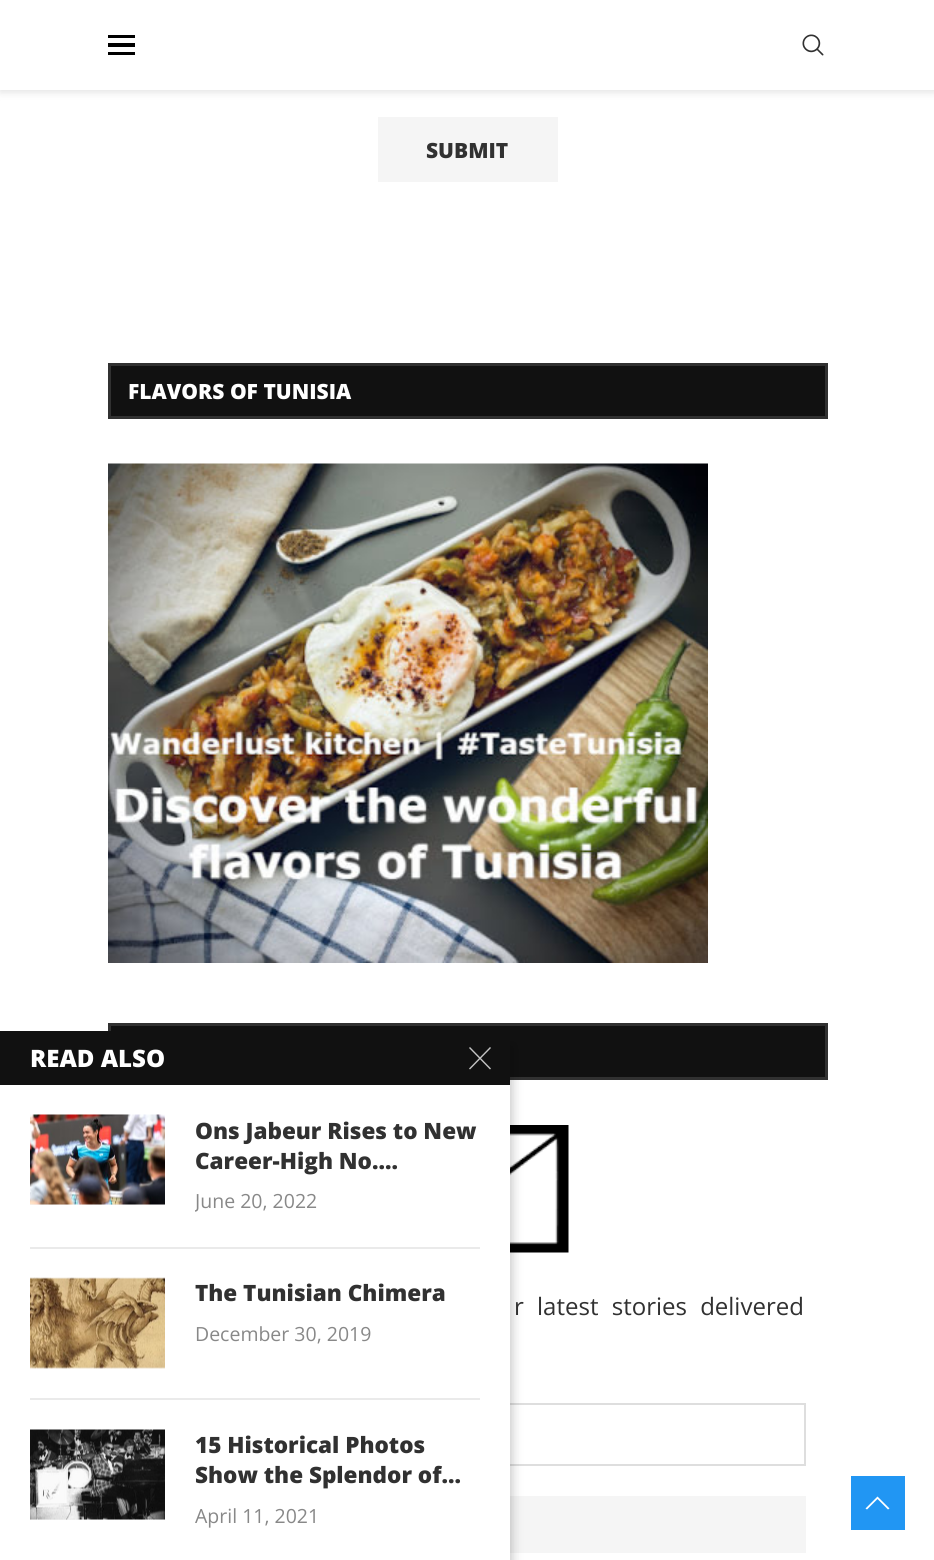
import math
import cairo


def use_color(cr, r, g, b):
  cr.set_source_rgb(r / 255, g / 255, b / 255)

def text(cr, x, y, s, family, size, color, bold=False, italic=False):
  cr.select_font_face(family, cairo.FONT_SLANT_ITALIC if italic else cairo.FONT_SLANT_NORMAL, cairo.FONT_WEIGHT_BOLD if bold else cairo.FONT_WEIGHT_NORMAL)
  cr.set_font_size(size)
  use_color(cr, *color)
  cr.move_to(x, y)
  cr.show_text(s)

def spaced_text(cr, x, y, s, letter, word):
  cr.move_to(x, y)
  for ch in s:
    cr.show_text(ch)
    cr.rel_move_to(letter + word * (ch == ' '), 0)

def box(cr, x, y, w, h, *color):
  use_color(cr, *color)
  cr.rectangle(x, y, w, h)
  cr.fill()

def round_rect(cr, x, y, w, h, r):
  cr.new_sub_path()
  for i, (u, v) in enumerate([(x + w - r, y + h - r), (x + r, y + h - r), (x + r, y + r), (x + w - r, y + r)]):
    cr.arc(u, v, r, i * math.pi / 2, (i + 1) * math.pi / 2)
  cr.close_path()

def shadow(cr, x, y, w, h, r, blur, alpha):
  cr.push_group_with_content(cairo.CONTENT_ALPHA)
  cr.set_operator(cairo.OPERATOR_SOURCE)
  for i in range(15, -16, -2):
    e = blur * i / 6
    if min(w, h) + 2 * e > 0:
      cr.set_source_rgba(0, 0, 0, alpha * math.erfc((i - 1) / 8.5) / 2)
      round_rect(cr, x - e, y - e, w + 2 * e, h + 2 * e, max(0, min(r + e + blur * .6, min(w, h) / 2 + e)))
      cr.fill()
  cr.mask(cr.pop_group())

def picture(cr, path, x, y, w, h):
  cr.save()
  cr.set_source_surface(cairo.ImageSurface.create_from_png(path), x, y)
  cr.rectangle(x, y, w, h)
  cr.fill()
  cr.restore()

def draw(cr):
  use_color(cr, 255, 255, 255)
  cr.paint()
  use_color(cr, 190, 190, 190)
  shadow(cr, 0, 2, 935, 90, 0, 4, 0.46)
  box(cr, 0, 0, 934, 90, 255, 255, 255)
  box(cr, 108, 35, 27, 3, 0, 0, 0)
  box(cr, 108, 43, 27, 4, 0, 0, 0)
  box(cr, 108, 52, 27, 3, 0, 0, 0)
  picture(cr, "img_01.png", 802, 34, 22, 22)
  box(cr, 378, 117, 180, 65, 245, 245, 245)
  use_color(cr, 17, 17, 17)
  cr.rectangle(109.5, 364.5, 717, 53)
  cr.fill_preserve()
  use_color(cr, 49, 49, 49)
  cr.set_line_width(3)
  cr.stroke()
  picture(cr, "img_02.png", 108, 463, 600, 500)
  use_color(cr, 17, 17, 17)
  cr.rectangle(109.5, 1024.5, 717, 54)
  cr.fill_preserve()
  use_color(cr, 49, 49, 49)
  cr.stroke()
  picture(cr, "img_03.png", 510, 1125, 59, 128)
  cr.rectangle(132, 1404, 673, 61)
  use_color(cr, 222, 222, 222)
  cr.set_line_width(2)
  cr.stroke()
  box(cr, 510, 1496, 296, 57, 245, 245, 245)
  use_color(cr, 0, 0, 0)
  shadow(cr, 3, 1046, 510, 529, 0, 5, 0.2)
  box(cr, 0, 1085, 510, 475, 255, 255, 255)
  box(cr, 0, 1031, 510, 54, 17, 17, 17)
  use_color(cr, 196, 196, 196)
  cr.new_path()
  cr.move_to(469, 1068.5)
  cr.line_to(490, 1047)
  cr.line_to(491, 1048)
  cr.line_to(470, 1069.5)
  cr.close_path()
  cr.fill()
  cr.new_path()
  cr.move_to(470, 1047)
  cr.line_to(491, 1068.5)
  cr.line_to(490, 1069.5)
  cr.line_to(469, 1048)
  cr.close_path()
  cr.fill()
  box(cr, 30, 1247, 450, 2, 234, 234, 234)
  box(cr, 30, 1204, 135, 1, 245, 245, 245)
  picture(cr, "img_04.png", 30, 1114, 135, 91)
  box(cr, 30, 1398, 450, 2, 234, 234, 234)
  box(cr, 30, 1278, 135, 90, 245, 245, 245)
  picture(cr, "img_05.png", 30, 1277, 135, 92)
  box(cr, 30, 1519, 135, 1, 245, 245, 245)
  picture(cr, "img_06.png", 30, 1429, 135, 91)
  box(cr, 851, 1476, 54, 54, 33, 150, 243)
  use_color(cr, 255, 255, 255)
  cr.new_path()
  cr.move_to(877.5, 1496.5)
  cr.line_to(865.5, 1508.5)
  cr.line_to(867, 1509.5)
  cr.line_to(877.5, 1499)
  cr.line_to(888, 1509.5)
  cr.line_to(889.5, 1508.5)
  cr.close_path()
  cr.fill()
  text(cr, 426, 158, "SUBMIT", "Open Sans ExtraBold", 21, (49, 49, 49))
  text(cr, 128, 399, "FLAVORS OF TUNISIA", "Open Sans ExtraBold", 21, (255, 255, 255))
  cr.select_font_face("Open Sans")
  cr.set_font_size(24)
  use_color(cr, 49, 49, 49)
  spaced_text(cr, 514, 1315, "r latest stories delivered", 0, 7)
  text(cr, 30, 1067, "READ ALSO", "Open Sans ExtraBold", 24, (255, 255, 255))
  text(cr, 195, 1139, "Ons Jabeur Rises to New", "Open Sans ExtraBold", 22.5, (49, 49, 49))
  text(cr, 195, 1169, "Career-High No....", "Open Sans ExtraBold", 22.5, (49, 49, 49))
  cr.save()
  cr.rectangle(195, 1115, 285, 102)
  cr.clip()
  text(cr, 195, 1208, "June 20, 2022", "Open Sans", 19.5, (136, 136, 136))
  cr.restore()
  text(cr, 195, 1301, "The Tunisian Chimera", "Open Sans ExtraBold", 22.5, (49, 49, 49))
  text(cr, 195, 1341, "December 30, 2019", "Open Sans", 19.5, (136, 136, 136))
  text(cr, 195, 1453, "15 Historical Photos", "Open Sans ExtraBold", 22.5, (49, 49, 49))
  text(cr, 195, 1483, "Show the Splendor of...", "Open Sans ExtraBold", 22.5, (49, 49, 49))
  text(cr, 195, 1523, "April 11, 2021", "Open Sans", 19.5, (136, 136, 136))


surface = cairo.ImageSurface(cairo.FORMAT_RGB24, 934, 1560)
cr = cairo.Context(surface)
options = cairo.FontOptions()
options.set_hint_metrics(cairo.HINT_METRICS_OFF)
options.set_hint_style(cairo.HINT_STYLE_NONE)
cr.set_font_options(options)
cr.set_miter_limit(4)
draw(cr)
surface.write_to_png("out.png")
